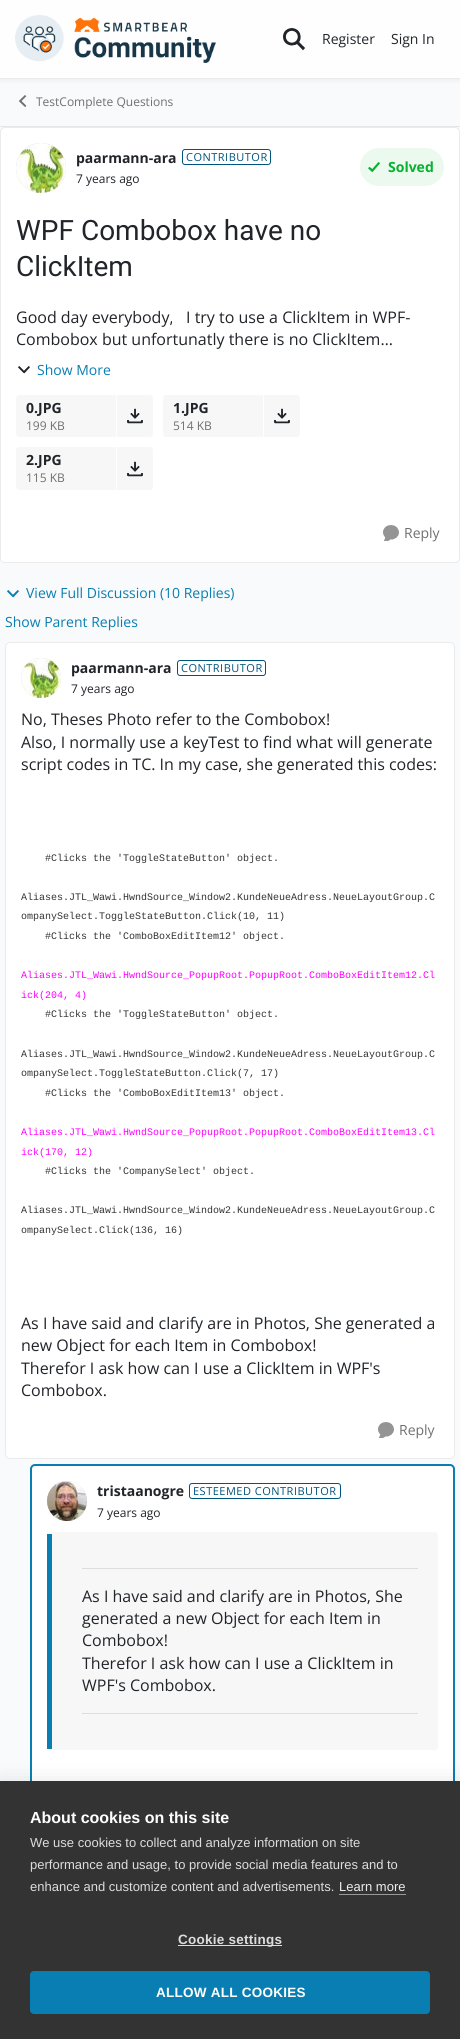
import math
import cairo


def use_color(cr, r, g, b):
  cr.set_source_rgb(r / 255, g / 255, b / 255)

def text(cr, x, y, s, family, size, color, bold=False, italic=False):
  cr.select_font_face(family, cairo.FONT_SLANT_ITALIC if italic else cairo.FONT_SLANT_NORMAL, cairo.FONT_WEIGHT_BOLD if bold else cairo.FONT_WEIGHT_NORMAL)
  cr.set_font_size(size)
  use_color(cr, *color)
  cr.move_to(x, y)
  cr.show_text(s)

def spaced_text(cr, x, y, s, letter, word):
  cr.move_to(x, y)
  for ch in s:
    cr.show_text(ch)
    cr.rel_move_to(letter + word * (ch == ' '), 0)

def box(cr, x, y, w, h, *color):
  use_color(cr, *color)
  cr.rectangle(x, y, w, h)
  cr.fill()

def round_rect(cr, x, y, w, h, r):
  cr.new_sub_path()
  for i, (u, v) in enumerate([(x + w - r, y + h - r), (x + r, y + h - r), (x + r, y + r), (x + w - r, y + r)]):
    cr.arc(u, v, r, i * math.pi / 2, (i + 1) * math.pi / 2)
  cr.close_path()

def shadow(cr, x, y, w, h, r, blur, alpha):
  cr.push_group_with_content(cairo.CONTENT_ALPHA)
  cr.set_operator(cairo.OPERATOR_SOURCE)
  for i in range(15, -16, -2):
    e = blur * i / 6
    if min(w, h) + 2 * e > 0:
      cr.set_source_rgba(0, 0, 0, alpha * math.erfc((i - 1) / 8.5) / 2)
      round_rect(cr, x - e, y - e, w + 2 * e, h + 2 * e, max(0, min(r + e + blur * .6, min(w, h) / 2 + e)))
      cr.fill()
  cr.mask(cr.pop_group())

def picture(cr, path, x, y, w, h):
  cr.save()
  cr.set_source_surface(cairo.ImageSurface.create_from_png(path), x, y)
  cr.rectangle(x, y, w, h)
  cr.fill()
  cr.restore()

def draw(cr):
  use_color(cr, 248, 250, 251)
  cr.paint()
  use_color(cr, 51, 51, 51)
  shadow(cr, 0, 2, 460, 79, 0, 2, 0.06)
  box(cr, 0, 0, 460, 78, 254, 254, 254)
  box(cr, 0, 78, 460, 1, 234, 234, 234)
  picture(cr, "img_01.png", 15, 15, 201, 48)
  picture(cr, "img_02.png", 283, 28, 22, 23)
  box(cr, 0, 126, 460, 1, 228, 230, 231)
  picture(cr, "img_03.png", 19, 95, 8, 12)
  use_color(cr, 255, 255, 255)
  round_rect(cr, 0, 127, 460, 436, 5)
  cr.fill()
  round_rect(cr, 0.5, 127.5, 459, 435, 4.5)
  cr.set_source_rgba(0, 0, 0, 0.08)
  cr.set_line_width(1)
  cr.stroke()
  use_color(cr, 217, 217, 217)
  cr.arc(41, 168, 25, 0, 2 * math.pi)
  cr.fill()
  picture(cr, "img_04.png", 16, 143, 50, 50)
  round_rect(cr, 182.5, 149.5, 88, 15, 2.5)
  use_color(cr, 0, 83, 124)
  cr.stroke()
  use_color(cr, 235, 249, 238)
  round_rect(cr, 360, 148, 84, 38, 19)
  cr.fill()
  picture(cr, "img_05.png", 368, 162, 12, 10)
  picture(cr, "img_06.png", 18, 366, 12, 8)
  use_color(cr, 247, 247, 247)
  cr.new_path()
  cr.move_to(19, 395)
  cr.line_to(116, 395)
  cr.line_to(116, 437)
  cr.line_to(19, 437)
  cr.curve_to(17.5, 437, 16, 435.5, 16, 434)
  cr.line_to(16, 398)
  cr.curve_to(16, 396.5, 17.5, 395, 19, 395)
  cr.close_path()
  cr.fill()
  cr.new_path()
  cr.move_to(116, 395)
  cr.line_to(150, 395)
  cr.curve_to(151.5, 395, 153, 396.5, 153, 398)
  cr.line_to(153, 434)
  cr.curve_to(153, 435.5, 151.5, 437, 150, 437)
  cr.line_to(116, 437)
  cr.close_path()
  cr.fill()
  box(cr, 116, 395, 1, 42, 255, 255, 255)
  picture(cr, "img_07.png", 127, 408, 16, 16)
  use_color(cr, 247, 247, 247)
  cr.new_path()
  cr.move_to(166, 395)
  cr.line_to(263, 395)
  cr.line_to(263, 437)
  cr.line_to(166, 437)
  cr.curve_to(164.5, 437, 163, 435.5, 163, 434)
  cr.line_to(163, 398)
  cr.curve_to(163, 396.5, 164.5, 395, 166, 395)
  cr.close_path()
  cr.fill()
  cr.new_path()
  cr.move_to(263, 395)
  cr.line_to(297, 395)
  cr.curve_to(298.5, 395, 300, 396.5, 300, 398)
  cr.line_to(300, 434)
  cr.curve_to(300, 435.5, 298.5, 437, 297, 437)
  cr.line_to(263, 437)
  cr.close_path()
  cr.fill()
  box(cr, 263, 395, 1, 42, 255, 255, 255)
  picture(cr, "img_07.png", 274, 408, 16, 16)
  use_color(cr, 247, 247, 247)
  cr.new_path()
  cr.move_to(19, 447)
  cr.line_to(116, 447)
  cr.line_to(116, 490)
  cr.line_to(19, 490)
  cr.curve_to(17.5, 490, 16, 488.5, 16, 487)
  cr.line_to(16, 450)
  cr.curve_to(16, 448.5, 17.5, 447, 19, 447)
  cr.close_path()
  cr.fill()
  cr.new_path()
  cr.move_to(116, 447)
  cr.line_to(150, 447)
  cr.curve_to(151.5, 447, 153, 448.5, 153, 450)
  cr.line_to(153, 487)
  cr.curve_to(153, 488.5, 151.5, 490, 150, 490)
  cr.line_to(116, 490)
  cr.close_path()
  cr.fill()
  box(cr, 116, 447, 1, 43, 255, 255, 255)
  picture(cr, "img_07.png", 127, 461, 16, 16)
  picture(cr, "img_08.png", 383, 525, 16, 16)
  picture(cr, "img_09.png", 7, 590, 12, 8)
  round_rect(cr, 5, 642, 450, 817, 5)
  cr.fill()
  round_rect(cr, 5.5, 642.5, 449, 816, 4.5)
  cr.set_source_rgba(0, 0, 0, 0.08)
  cr.stroke()
  use_color(cr, 217, 217, 217)
  cr.arc(41, 678, 20, 0, 2 * math.pi)
  cr.fill()
  picture(cr, "img_10.png", 21, 658, 40, 40)
  round_rect(cr, 177.5, 660.5, 88, 15, 2.5)
  use_color(cr, 0, 83, 124)
  cr.stroke()
  picture(cr, "img_08.png", 378, 1422, 16, 16)
  use_color(cr, 255, 255, 255)
  round_rect(cr, 31, 1465, 423, 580, 4)
  cr.fill_preserve()
  use_color(cr, 9, 126, 178)
  cr.set_line_width(2)
  cr.stroke()
  use_color(cr, 217, 217, 217)
  cr.arc(67, 1501, 20, 0, 2 * math.pi)
  cr.fill()
  picture(cr, "img_11.png", 47, 1481, 40, 40)
  round_rect(cr, 189.5, 1483.5, 151, 15, 2.5)
  use_color(cr, 0, 83, 124)
  cr.set_line_width(1)
  cr.stroke()
  use_color(cr, 247, 247, 247)
  round_rect(cr, 47, 1532, 391, 218, 3)
  cr.fill()
  box(cr, 47, 1534, 5, 215, 9, 126, 178)
  box(cr, 82, 1568, 336, 1, 222, 222, 222)
  box(cr, 82, 1713, 336, 1, 222, 222, 222)
  use_color(cr, 0, 0, 0)
  shadow(cr, 0, 1781, 460, 258, 0, 10, 0.1)
  box(cr, 0, 1781, 460, 258, 51, 51, 51)
  box(cr, 339, 1894, 67, 1, 153, 153, 153)
  box(cr, 178, 1945, 104, 1, 221, 221, 221)
  use_color(cr, 9, 126, 178)
  round_rect(cr, 30, 1971, 400, 43, 4)
  cr.fill()
  text(cr, 322, 44, "Register", "Open Sans", 14, (33, 36, 41))
  text(cr, 391, 44, "Sign In", "Open Sans", 14, (33, 36, 41))
  text(cr, 36, 106, "TestComplete Questions", "Open Sans", 12, (112, 112, 112))
  text(cr, 76, 163, "paarmann-ara", "Open Sans", 14, (33, 36, 41), bold=True)
  cr.select_font_face("Open Sans")
  cr.set_font_size(11)
  use_color(cr, 0, 83, 124)
  spaced_text(cr, 186, 161, "CONTRIBUTOR", 0.5, 0)
  text(cr, 76, 183, "7 years ago", "Open Sans", 12, (33, 36, 41))
  text(cr, 388, 172, "Solved", "Open Sans", 14, (8, 177, 48), bold=True)
  text(cr, 16, 240, "WPF Combobox have no", "Roboto", 28, (33, 36, 41))
  text(cr, 16, 276, "ClickItem", "Roboto", 28, (33, 36, 41))
  text(cr, 16, 323, "Good day everybody,", "Open Sans", 16, (33, 36, 41))
  text(cr, 186, 323, "I try to use a ClickItem in WPF-", "Open Sans", 16, (33, 36, 41))
  text(cr, 16, 345, "Combobox but unfortunatly there is no ClickItem…", "Open Sans", 16, (33, 36, 41))
  text(cr, 37, 375, "Show More", "Open Sans", 14, (9, 126, 178))
  text(cr, 26, 413, "0.JPG", "Open Sans", 14, (33, 36, 41), bold=True)
  text(cr, 26, 430, "199 KB", "Open Sans", 12, (112, 112, 112))
  text(cr, 173, 413, "1.JPG", "Open Sans", 14, (33, 36, 41), bold=True)
  text(cr, 173, 430, "514 KB", "Open Sans", 12, (112, 112, 112))
  text(cr, 26, 465, "2.JPG", "Open Sans", 14, (33, 36, 41), bold=True)
  text(cr, 26, 482, "115 KB", "Open Sans", 12, (112, 112, 112))
  text(cr, 404, 538, "Reply", "Open Sans", 14, (112, 112, 112))
  text(cr, 26, 598, "View Full Discussion (10 Replies)", "Open Sans", 14, (9, 126, 178))
  text(cr, 5, 627, "Show Parent Replies", "Open Sans", 14, (9, 126, 178))
  text(cr, 71, 673, "paarmann-ara", "Open Sans", 14, (33, 36, 41), bold=True)
  cr.select_font_face("Open Sans")
  cr.set_font_size(11)
  use_color(cr, 0, 83, 124)
  spaced_text(cr, 181, 672, "CONTRIBUTOR", 0.5, 0)
  text(cr, 71, 693, "7 years ago", "Open Sans", 12, (33, 36, 41))
  text(cr, 21, 725, "No, Theses Photo refer to the Combobox!", "Open Sans", 16, (33, 36, 41))
  text(cr, 21, 748, "Also, I normally use a keyTest to find what will generate", "Open Sans", 16, (33, 36, 41))
  text(cr, 21, 770, "script codes in TC. In my case, she generated this codes:", "Open Sans", 16, (33, 36, 41))
  text(cr, 45, 861, "#Clicks the 'ToggleStateButton' object.", "Liberation Mono", 10, (51, 51, 51))
  text(cr, 21, 900, "Aliases.JTL_Wawi.HwndSource_Window2.KundeNeueAdress.NeueLayoutGroup.C", "Liberation Mono", 10, (51, 51, 51))
  text(cr, 21, 919, "ompanySelect.ToggleStateButton.Click(10, 11)", "Liberation Mono", 10, (51, 51, 51))
  text(cr, 45, 939, "#Clicks the 'ComboBoxEditItem12' object.", "Liberation Mono", 10, (51, 51, 51))
  text(cr, 21, 978, "Aliases.JTL_Wawi.HwndSource_PopupRoot.PopupRoot.ComboBoxEditItem12.Cl", "Liberation Mono", 10, (255, 0, 255))
  text(cr, 21, 998, "ick(204, 4)", "Liberation Mono", 10, (255, 0, 255))
  text(cr, 45, 1017, "#Clicks the 'ToggleStateButton' object.", "Liberation Mono", 10, (51, 51, 51))
  text(cr, 21, 1057, "Aliases.JTL_Wawi.HwndSource_Window2.KundeNeueAdress.NeueLayoutGroup.C", "Liberation Mono", 10, (51, 51, 51))
  text(cr, 21, 1076, "ompanySelect.ToggleStateButton.Click(7, 17)", "Liberation Mono", 10, (51, 51, 51))
  text(cr, 45, 1096, "#Clicks the 'ComboBoxEditItem13' object.", "Liberation Mono", 10, (51, 51, 51))
  text(cr, 21, 1135, "Aliases.JTL_Wawi.HwndSource_PopupRoot.PopupRoot.ComboBoxEditItem13.Cl", "Liberation Mono", 10, (255, 0, 255))
  text(cr, 21, 1155, "ick(170, 12)", "Liberation Mono", 10, (255, 0, 255))
  text(cr, 45, 1174, "#Clicks the 'CompanySelect' object.", "Liberation Mono", 10, (51, 51, 51))
  text(cr, 21, 1213, "Aliases.JTL_Wawi.HwndSource_Window2.KundeNeueAdress.NeueLayoutGroup.C", "Liberation Mono", 10, (51, 51, 51))
  text(cr, 21, 1233, "ompanySelect.Click(136, 16)", "Liberation Mono", 10, (51, 51, 51))
  text(cr, 21, 1329, "As I have said and clarify are in Photos, She generated a", "Open Sans", 16, (33, 36, 41))
  text(cr, 21, 1351, "new Object for each Item in Combobox!", "Open Sans", 16, (33, 36, 41))
  text(cr, 21, 1374, "Therefor I ask how can I use a ClickItem in WPF's", "Open Sans", 16, (33, 36, 41))
  text(cr, 21, 1396, "Combobox.", "Open Sans", 16, (33, 36, 41))
  text(cr, 399, 1435, "Reply", "Open Sans", 14, (112, 112, 112))
  text(cr, 97, 1496, "tristaanogre", "Open Sans", 14, (33, 36, 41), bold=True)
  cr.select_font_face("Open Sans")
  cr.set_font_size(11)
  use_color(cr, 0, 83, 124)
  spaced_text(cr, 193, 1495, "ESTEEMED CONTRIBUTOR", 0.5, 0)
  text(cr, 97, 1517, "7 years ago", "Open Sans", 12, (33, 36, 41))
  text(cr, 82, 1602, "As I have said and clarify are in Photos, She", "Open Sans", 16, (33, 36, 41))
  text(cr, 82, 1624, "generated a new Object for each Item in", "Open Sans", 16, (33, 36, 41))
  text(cr, 82, 1646, "Combobox!", "Open Sans", 16, (33, 36, 41))
  text(cr, 82, 1669, "Therefor I ask how can I use a ClickItem in", "Open Sans", 16, (33, 36, 41))
  text(cr, 82, 1691, "WPF's Combobox.", "Open Sans", 16, (33, 36, 41))
  text(cr, 30, 1823, "About cookies on this site", "Liberation Sans", 16, (255, 255, 255), bold=True)
  text(cr, 30, 1847, "We use cookies to collect and analyze information on site", "Liberation Sans", 13, (221, 221, 221))
  text(cr, 30, 1869, "performance and usage, to provide social media features and to", "Liberation Sans", 13, (221, 221, 221))
  text(cr, 30, 1891, "enhance and customize content and advertisements.", "Liberation Sans", 13, (221, 221, 221))
  text(cr, 339, 1891, "Learn more", "Liberation Sans", 13, (238, 238, 238))
  cr.select_font_face("Liberation Sans", cairo.FONT_SLANT_NORMAL, cairo.FONT_WEIGHT_BOLD)
  cr.set_font_size(13.5)
  use_color(cr, 221, 221, 221)
  spaced_text(cr, 178, 1944, "Cookie settings", 0.25, 0)
  use_color(cr, 255, 255, 255)
  spaced_text(cr, 156, 1997, "ALLOW ALL COOKIES", 0.25, 0)


surface = cairo.ImageSurface(cairo.FORMAT_RGB24, 460, 2039)
cr = cairo.Context(surface)
options = cairo.FontOptions()
options.set_hint_metrics(cairo.HINT_METRICS_OFF)
options.set_hint_style(cairo.HINT_STYLE_NONE)
cr.set_font_options(options)
cr.set_miter_limit(4)
draw(cr)
surface.write_to_png("out.png")
